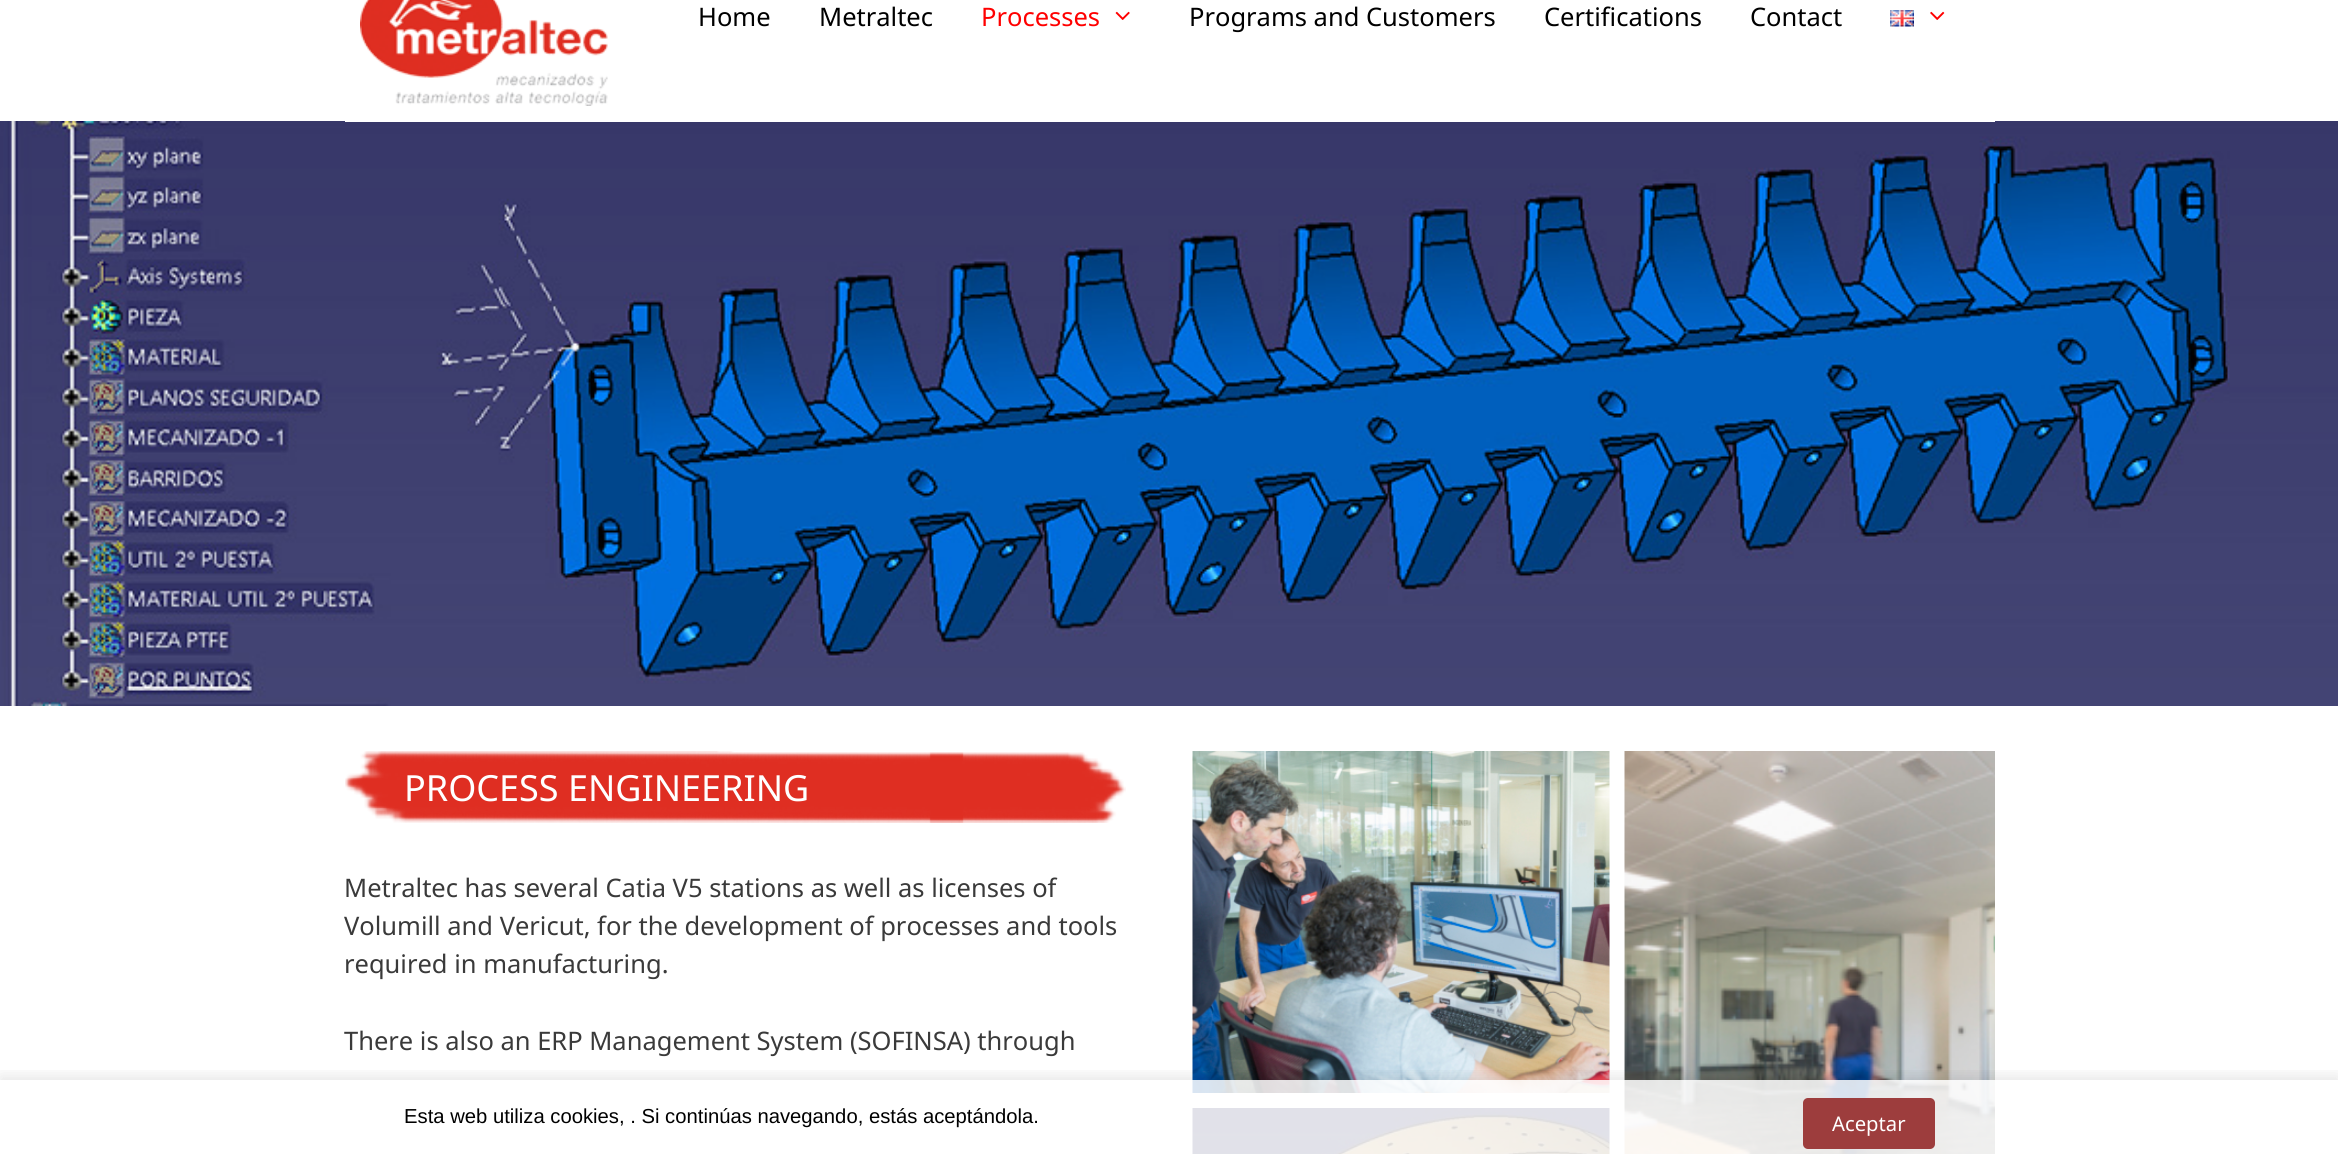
import math
import cairo


def use_color(cr, r, g, b):
  cr.set_source_rgb(r / 255, g / 255, b / 255)

def text(cr, x, y, s, family, size, color, bold=False, italic=False):
  cr.select_font_face(family, cairo.FONT_SLANT_ITALIC if italic else cairo.FONT_SLANT_NORMAL, cairo.FONT_WEIGHT_BOLD if bold else cairo.FONT_WEIGHT_NORMAL)
  cr.set_font_size(size)
  use_color(cr, *color)
  cr.move_to(x, y)
  cr.show_text(s)

def box(cr, x, y, w, h, *color):
  use_color(cr, *color)
  cr.rectangle(x, y, w, h)
  cr.fill()

def round_rect(cr, x, y, w, h, r):
  cr.new_sub_path()
  for i, (u, v) in enumerate([(x + w - r, y + h - r), (x + r, y + h - r), (x + r, y + r), (x + w - r, y + r)]):
    cr.arc(u, v, r, i * math.pi / 2, (i + 1) * math.pi / 2)
  cr.close_path()

def shadow(cr, x, y, w, h, r, blur, alpha):
  cr.push_group_with_content(cairo.CONTENT_ALPHA)
  cr.set_operator(cairo.OPERATOR_SOURCE)
  for i in range(15, -16, -2):
    e = blur * i / 6
    if min(w, h) + 2 * e > 0:
      cr.set_source_rgba(0, 0, 0, alpha * math.erfc((i - 1) / 8.5) / 2)
      round_rect(cr, x - e, y - e, w + 2 * e, h + 2 * e, max(0, min(r + e + blur * .6, min(w, h) / 2 + e)))
      cr.fill()
  cr.mask(cr.pop_group())

def picture(cr, path, x, y, w, h):
  cr.save()
  cr.set_source_surface(cairo.ImageSurface.create_from_png(path), x, y)
  cr.rectangle(x, y, w, h)
  cr.fill()
  cr.restore()

def draw(cr):
  use_color(cr, 255, 255, 255)
  cr.paint()
  picture(cr, "img_05.png", 0, 121, 2338, 585)
  box(cr, 345, 121, 1650, 1, 255, 255, 255)
  picture(cr, "img_01.png", 360, 0, 248, 106)
  picture(cr, "img_02.png", 1115, 11, 15, 9)
  picture(cr, "img_03.png", 1890, 10, 24, 17)
  picture(cr, "img_04.png", 1930, 11, 15, 9)
  picture(cr, "img_06.png", 345, 751, 781, 72)
  picture(cr, "img_07.png", 1192, 751, 418, 342)
  picture(cr, "img_08.png", 1624, 751, 371, 403)
  picture(cr, "img_09.png", 1192, 1108, 418, 46)
  cr.save()
  cr.rectangle(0, 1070, 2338, 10)
  cr.clip()
  use_color(cr, 0, 0, 0)
  shadow(cr, 0, 1076, 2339, 75, 0, 7.5, 0.1)
  cr.restore()
  cr.set_source_rgba(1, 1, 1, 0.85)
  cr.rectangle(1192, 1080, 803, 74)
  cr.fill()
  use_color(cr, 157, 61, 61)
  round_rect(cr, 1803, 1098, 132, 51, 5)
  cr.fill()
  text(cr, 698, 26, "Home", "Noto Sans", 25.5, (0, 0, 0))
  text(cr, 819, 26, "Metraltec", "Noto Sans", 25.5, (0, 0, 0))
  text(cr, 981, 26, "Processes", "Noto Sans", 25.5, (255, 0, 0))
  text(cr, 1189, 26, "Programs and Customers", "Noto Sans", 25.5, (0, 0, 0))
  text(cr, 1544, 26, "Certifications", "Noto Sans", 25.5, (0, 0, 0))
  text(cr, 1750, 26, "Contact", "Noto Sans", 25.5, (0, 0, 0))
  text(cr, 404, 801, "PROCESS ENGINEERING", "Noto Sans", 36, (255, 255, 255))
  text(cr, 344, 897, "Metraltec has several Catia V5 stations as well as licenses of", "Noto Sans", 25.5, (58, 58, 58))
  text(cr, 344, 935, "Volumill and Vericut, for the development of processes and tools", "Noto Sans", 25.5, (58, 58, 58))
  text(cr, 344, 973, "required in manufacturing.", "Noto Sans", 25.5, (58, 58, 58))
  text(cr, 344, 1050, "There is also an ERP Management System (SOFINSA) through", "Noto Sans", 25.5, (58, 58, 58))
  text(cr, 404, 1123, "Esta web utiliza cookies, . Si continúas navegando, estás aceptándola.", "Liberation Sans", 20.25, (0, 0, 0))
  text(cr, 1832, 1131, "Aceptar", "Noto Sans", 20.25, (255, 255, 255))


surface = cairo.ImageSurface(cairo.FORMAT_RGB24, 2338, 1154)
cr = cairo.Context(surface)
options = cairo.FontOptions()
options.set_hint_metrics(cairo.HINT_METRICS_OFF)
options.set_hint_style(cairo.HINT_STYLE_NONE)
cr.set_font_options(options)
cr.set_miter_limit(4)
draw(cr)
surface.write_to_png("out.png")
